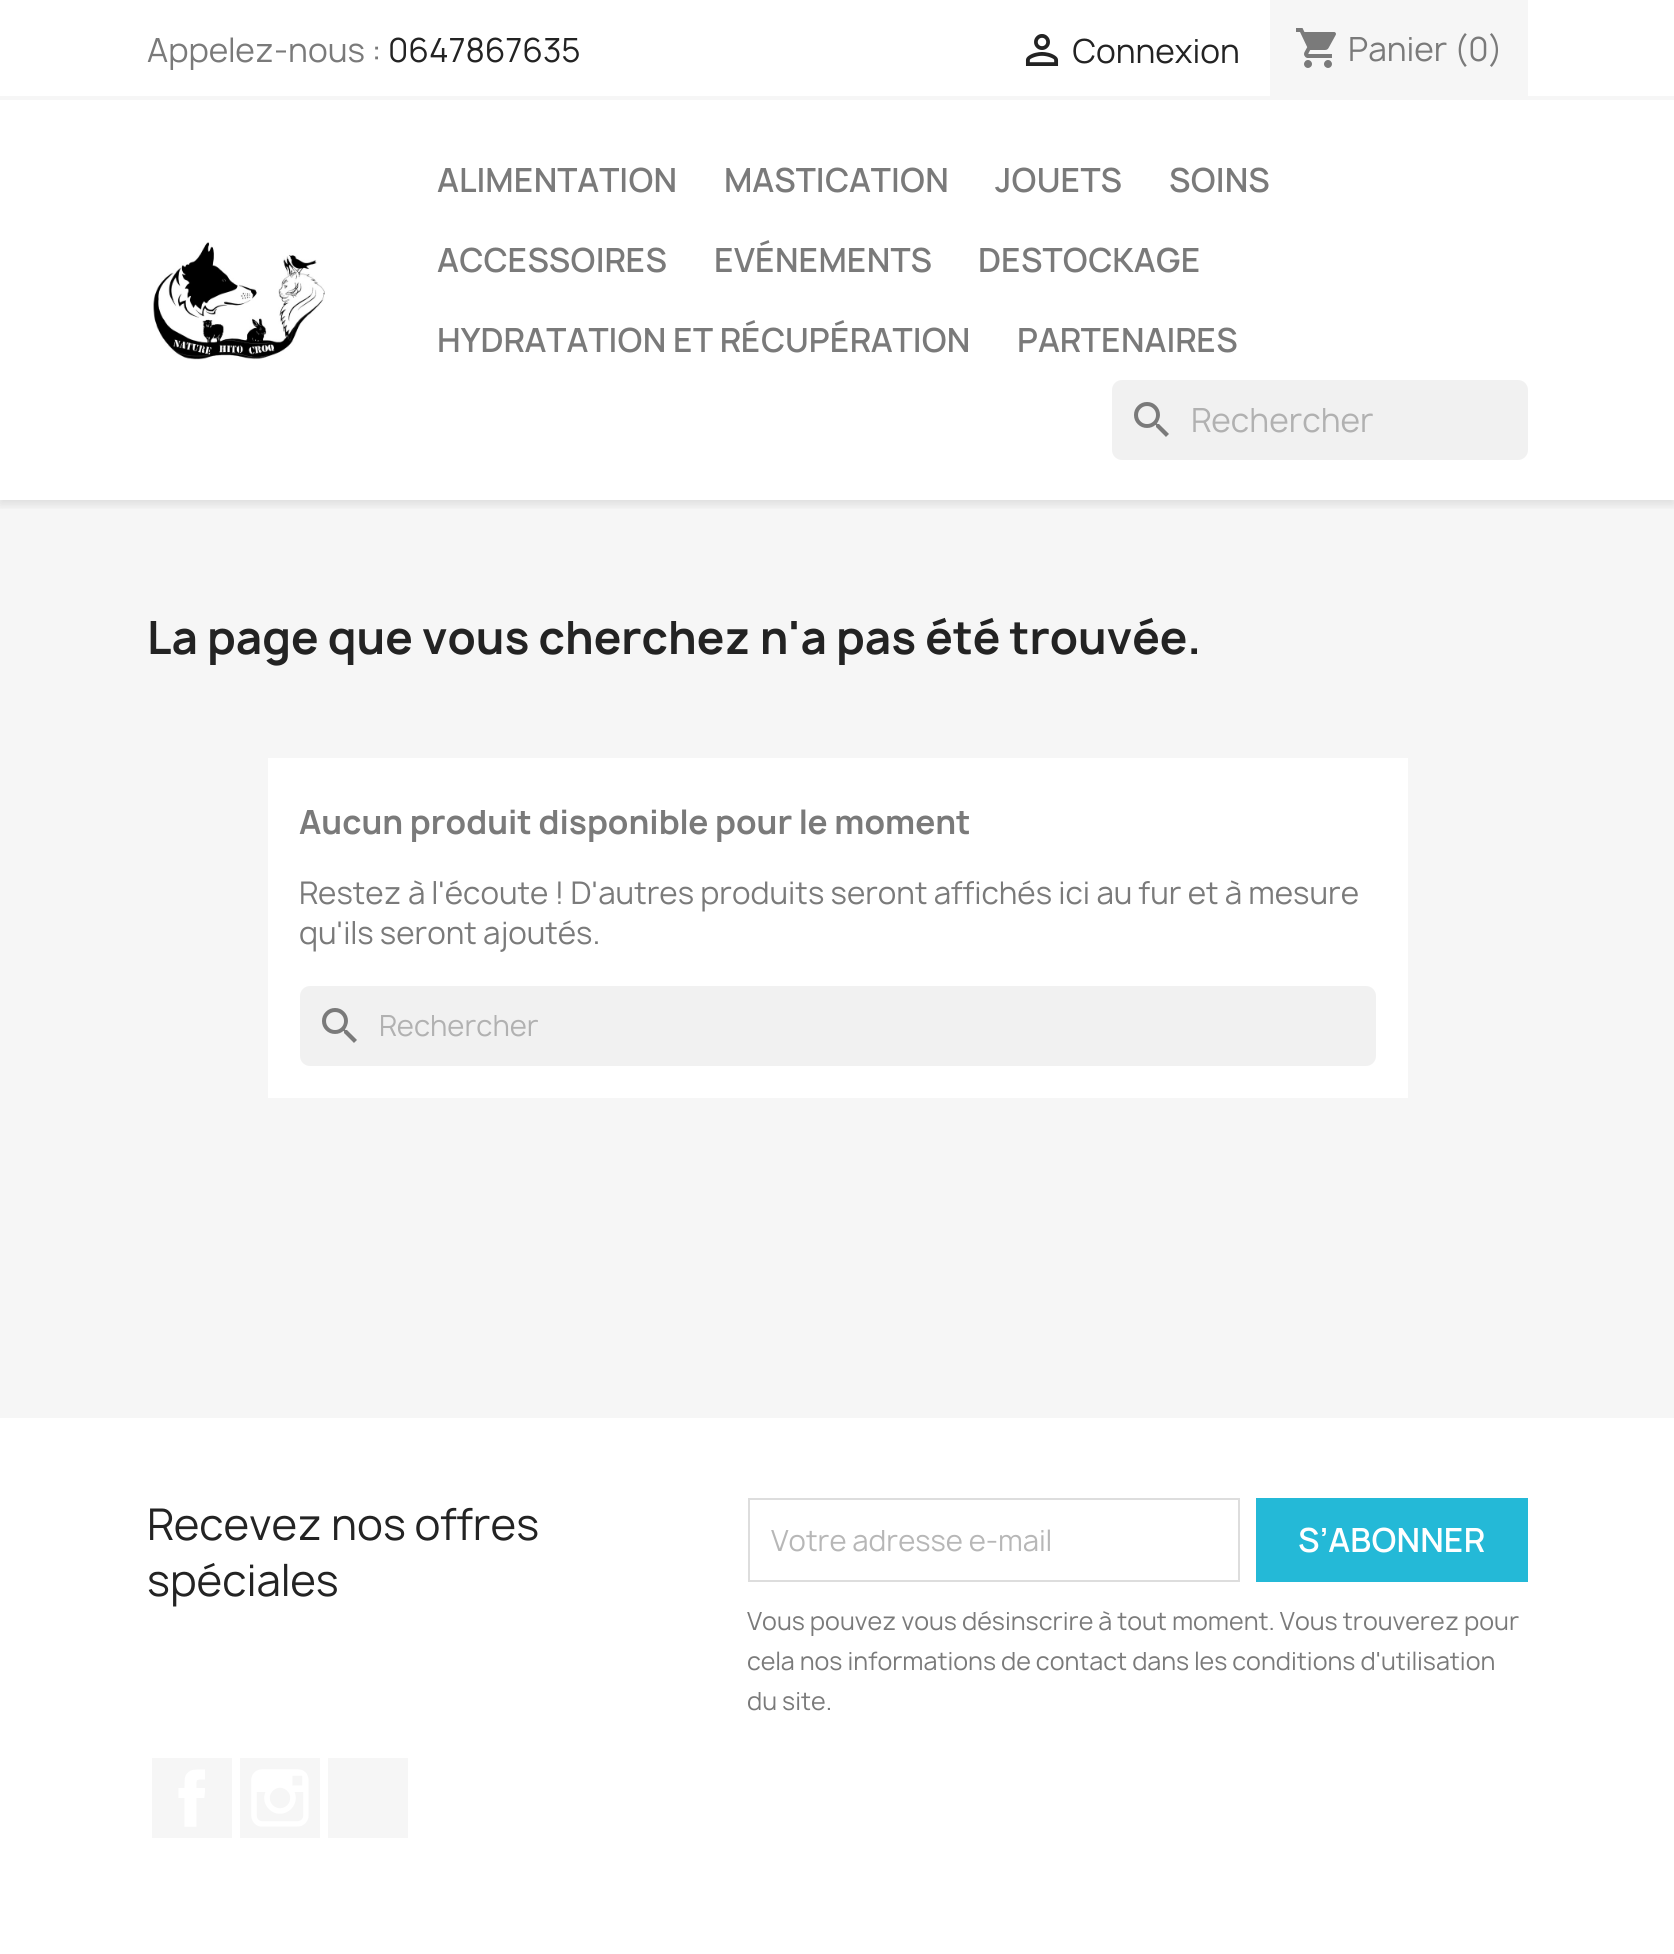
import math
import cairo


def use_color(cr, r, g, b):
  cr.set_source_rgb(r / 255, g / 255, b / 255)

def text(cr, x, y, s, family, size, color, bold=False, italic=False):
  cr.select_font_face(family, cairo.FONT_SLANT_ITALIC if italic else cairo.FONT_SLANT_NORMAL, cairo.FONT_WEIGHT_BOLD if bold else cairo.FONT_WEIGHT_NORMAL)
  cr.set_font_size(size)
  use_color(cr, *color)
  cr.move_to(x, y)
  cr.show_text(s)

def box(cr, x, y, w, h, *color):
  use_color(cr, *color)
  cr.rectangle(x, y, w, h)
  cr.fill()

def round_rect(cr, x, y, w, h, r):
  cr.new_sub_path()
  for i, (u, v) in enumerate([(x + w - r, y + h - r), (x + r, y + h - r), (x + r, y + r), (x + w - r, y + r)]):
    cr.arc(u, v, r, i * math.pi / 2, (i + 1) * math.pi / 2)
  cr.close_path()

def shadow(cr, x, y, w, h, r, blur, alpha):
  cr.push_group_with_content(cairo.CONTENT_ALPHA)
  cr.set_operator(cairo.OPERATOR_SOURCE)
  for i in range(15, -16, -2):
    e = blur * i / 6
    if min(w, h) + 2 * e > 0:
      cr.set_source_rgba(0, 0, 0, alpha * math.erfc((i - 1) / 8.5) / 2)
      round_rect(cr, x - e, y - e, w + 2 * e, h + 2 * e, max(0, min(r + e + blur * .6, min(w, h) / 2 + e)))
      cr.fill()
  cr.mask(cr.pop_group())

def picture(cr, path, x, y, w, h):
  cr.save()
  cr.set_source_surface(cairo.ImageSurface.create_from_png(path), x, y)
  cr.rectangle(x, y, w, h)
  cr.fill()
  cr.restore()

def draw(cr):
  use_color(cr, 255, 255, 255)
  cr.paint()
  box(cr, 0, 500, 1674, 918, 246, 246, 246)
  cr.save()
  cr.rectangle(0, 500, 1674, 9)
  cr.clip()
  use_color(cr, 0, 0, 0)
  shadow(cr, 0, 4, 1674, 500, 0, 5, 0.11)
  cr.restore()
  box(cr, 0, 96, 1674, 4, 246, 246, 246)
  picture(cr, "img_01.png", 1025, 34, 34, 32)
  box(cr, 1270, 0, 258, 96, 246, 246, 246)
  picture(cr, "img_02.png", 1296, 28, 40, 40)
  picture(cr, "img_03.png", 153, 242, 172, 118)
  use_color(cr, 241, 241, 241)
  round_rect(cr, 1112, 380, 416, 80, 10)
  cr.fill()
  picture(cr, "img_04.png", 1134, 402, 35, 35)
  box(cr, 268, 758, 1140, 340, 255, 255, 255)
  use_color(cr, 241, 241, 241)
  round_rect(cr, 300, 986, 1076, 80, 10)
  cr.fill()
  picture(cr, "img_04.png", 322, 1008, 35, 35)
  cr.rectangle(749, 1499, 490, 82)
  use_color(cr, 221, 221, 221)
  cr.stroke()
  box(cr, 1256, 1498, 272, 84, 36, 185, 215)
  box(cr, 152, 1758, 80, 80, 246, 246, 246)
  picture(cr, "img_05.png", 178, 1769, 27, 58)
  box(cr, 240, 1758, 80, 80, 246, 246, 246)
  picture(cr, "img_06.png", 251, 1769, 58, 58)
  box(cr, 328, 1758, 80, 80, 246, 246, 246)
  text(cr, 147, 62, "Appelez-nous :", "Manrope", 32, (122, 122, 122))
  text(cr, 388, 62, "0647867635", "Manrope", 32, (35, 35, 35))
  text(cr, 1072, 63, "Connexion", "Manrope", 32, (35, 35, 35))
  text(cr, 1348, 61, "Panier (0)", "Manrope", 32, (122, 122, 122))
  text(cr, 437, 192, "ALIMENTATION", "Manrope SemiBold", 32, (122, 122, 122))
  text(cr, 724, 192, "MASTICATION", "Manrope SemiBold", 32, (122, 122, 122))
  text(cr, 995, 192, "JOUETS", "Manrope SemiBold", 32, (122, 122, 122))
  text(cr, 1169, 192, "SOINS", "Manrope SemiBold", 32, (122, 122, 122))
  text(cr, 437, 272, "ACCESSOIRES", "Manrope SemiBold", 32, (122, 122, 122))
  text(cr, 714, 272, "EVÉNEMENTS", "Manrope SemiBold", 32, (122, 122, 122))
  text(cr, 978, 272, "DESTOCKAGE", "Manrope SemiBold", 32, (122, 122, 122))
  text(cr, 437, 352, "HYDRATATION ET RÉCUPÉRATION", "Manrope SemiBold", 32, (122, 122, 122))
  text(cr, 1017, 352, "PARTENAIRES", "Manrope SemiBold", 32, (122, 122, 122))
  text(cr, 1191, 432, "Rechercher", "Manrope", 32, (177, 177, 177))
  text(cr, 147, 654, "La page que vous cherchez n'a pas été trouvée.", "Manrope", 44, (35, 35, 35), bold=True)
  text(cr, 299, 834, "Aucun produit disponible pour le moment", "Manrope", 32, (122, 122, 122), bold=True)
  text(cr, 299, 904, "Restez à l'écoute ! D'autres produits seront affichés ici au fur et à mesure", "Manrope", 30, (122, 122, 122))
  text(cr, 299, 944, "qu'ils seront ajoutés.", "Manrope", 30, (122, 122, 122))
  text(cr, 379, 1036, "Rechercher", "Manrope", 28, (177, 177, 177))
  text(cr, 147, 1540, "Recevez nos offres", "Manrope", 42, (35, 35, 35))
  text(cr, 147, 1596, "spéciales", "Manrope", 42, (35, 35, 35))
  text(cr, 771, 1551, "Votre adresse e-mail", "Manrope", 28, (183, 183, 183))
  text(cr, 1298, 1552, "S’ABONNER", "Manrope SemiBold", 32, (255, 255, 255))
  text(cr, 747, 1630, "Vous pouvez vous désinscrire à tout moment. Vous trouverez pour", "Manrope", 24, (122, 122, 122))
  text(cr, 747, 1670, "cela nos informations de contact dans les conditions d'utilisation", "Manrope", 24, (122, 122, 122))
  text(cr, 747, 1710, "du site.", "Manrope", 24, (122, 122, 122))


surface = cairo.ImageSurface(cairo.FORMAT_RGB24, 1674, 1954)
cr = cairo.Context(surface)
options = cairo.FontOptions()
options.set_hint_metrics(cairo.HINT_METRICS_OFF)
options.set_hint_style(cairo.HINT_STYLE_NONE)
cr.set_font_options(options)
cr.set_miter_limit(4)
draw(cr)
surface.write_to_png("out.png")
